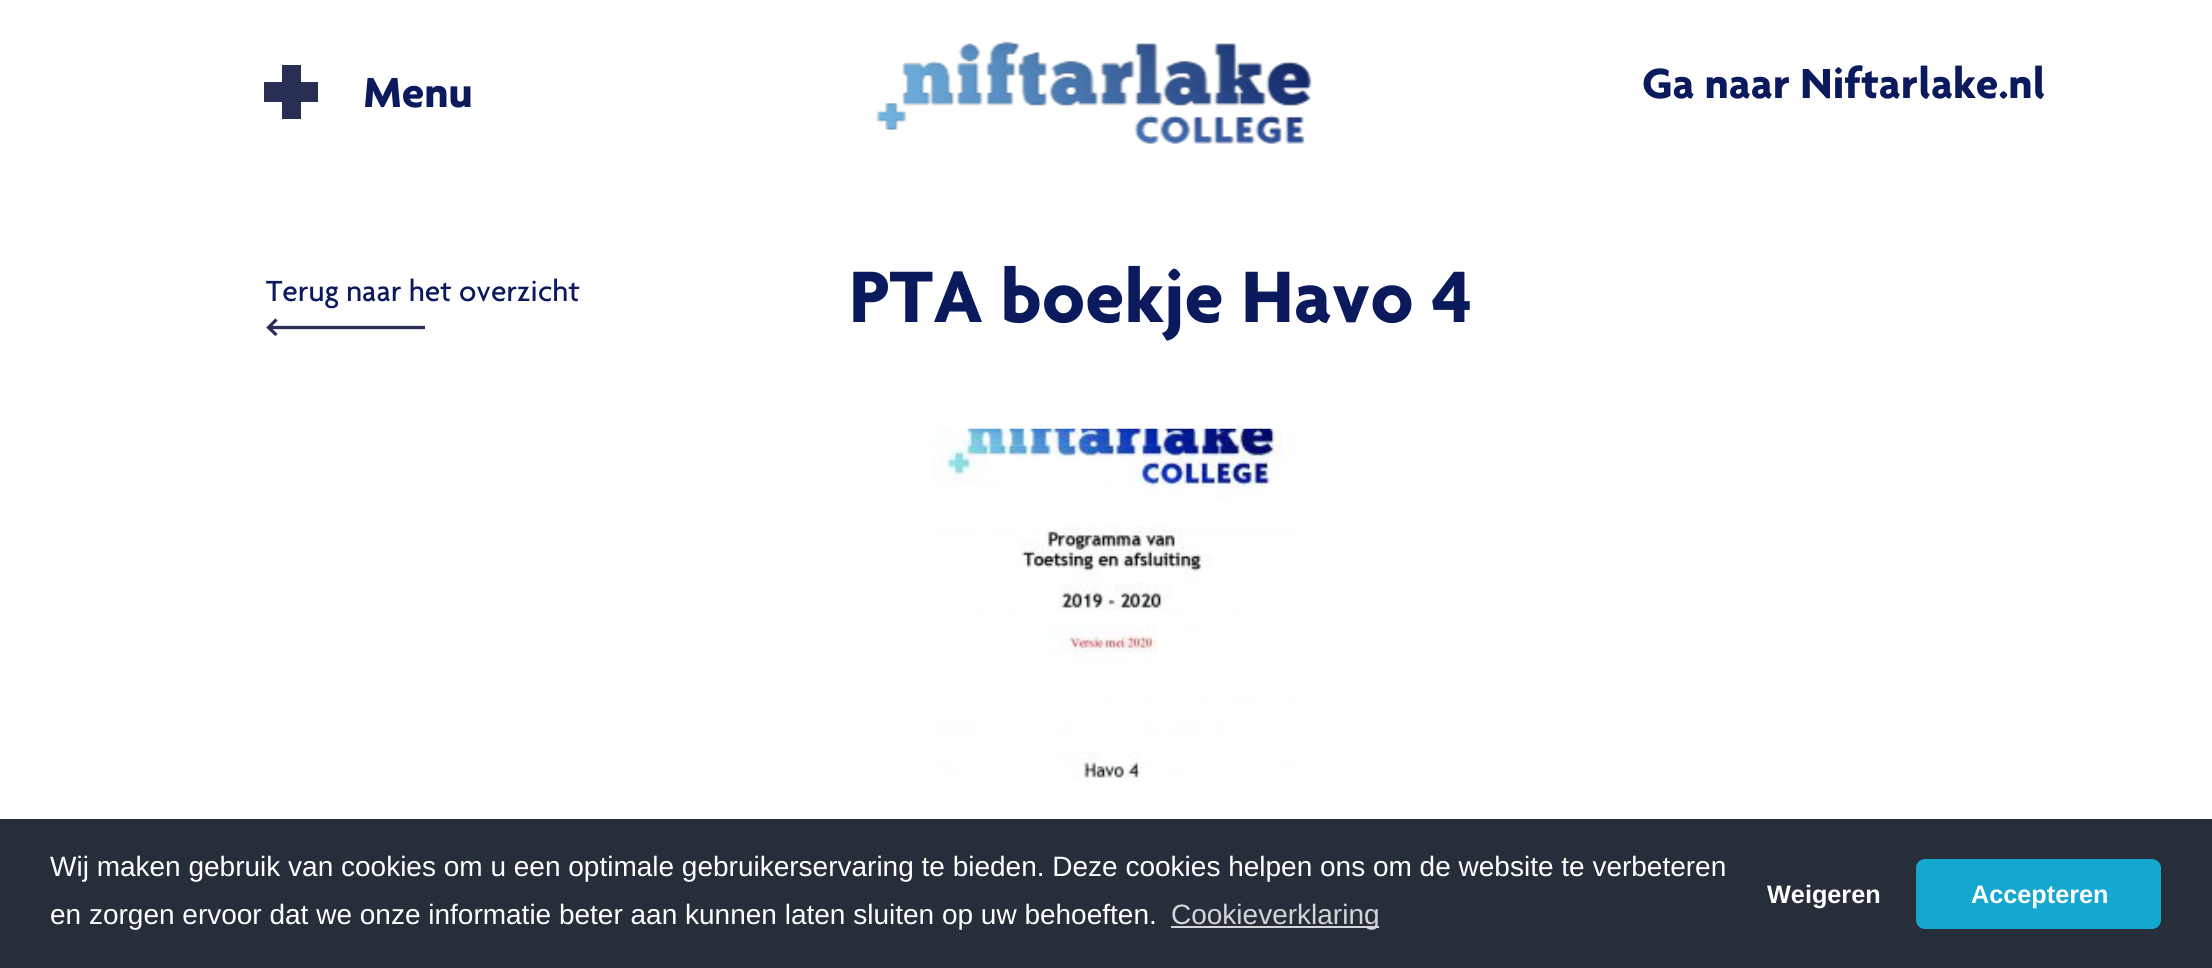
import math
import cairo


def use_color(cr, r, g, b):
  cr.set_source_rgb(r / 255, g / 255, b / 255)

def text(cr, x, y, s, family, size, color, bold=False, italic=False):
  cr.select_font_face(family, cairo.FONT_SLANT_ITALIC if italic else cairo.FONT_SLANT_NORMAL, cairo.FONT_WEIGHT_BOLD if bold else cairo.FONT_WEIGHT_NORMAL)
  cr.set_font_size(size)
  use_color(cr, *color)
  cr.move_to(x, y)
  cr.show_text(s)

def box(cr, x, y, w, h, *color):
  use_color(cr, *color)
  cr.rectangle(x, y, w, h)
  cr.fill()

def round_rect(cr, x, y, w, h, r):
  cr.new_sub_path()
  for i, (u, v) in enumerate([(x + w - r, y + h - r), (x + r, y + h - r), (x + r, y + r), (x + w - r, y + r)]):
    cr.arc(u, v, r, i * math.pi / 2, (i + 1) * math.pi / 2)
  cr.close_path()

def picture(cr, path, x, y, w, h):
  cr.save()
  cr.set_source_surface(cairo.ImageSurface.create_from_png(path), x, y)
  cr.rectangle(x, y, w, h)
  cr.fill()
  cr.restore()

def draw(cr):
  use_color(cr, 255, 255, 255)
  cr.paint()
  box(cr, 282, 65, 19, 54, 41, 46, 84)
  box(cr, 264, 82, 54, 20, 41, 46, 84)
  picture(cr, "img_02.png", 876, 41, 436, 103)
  picture(cr, "img_01.png", 861, 0, 490, 175)
  cr.new_path()
  cr.move_to(425, 327.5)
  cr.line_to(268.5, 327.5)
  cr.move_to(276.5, 319.5)
  cr.line_to(268.5, 327.5)
  cr.line_to(276.5, 335)
  cr.set_line_width(3.2)
  cr.stroke()
  picture(cr, "img_03.png", 932, 428, 365, 351)
  box(cr, 0, 819, 2212, 149, 37, 46, 57)
  box(cr, 1171, 926, 208, 2, 211, 213, 215)
  use_color(cr, 20, 167, 208)
  round_rect(cr, 1916, 859, 245, 70, 9)
  cr.fill()
  text(cr, 363, 107, "Menu", "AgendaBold", 45.5, (10, 26, 92), bold=True)
  text(cr, 1642, 98, "Ga naar Niftarlake.nl", "AgendaBold", 45.5, (10, 26, 92), bold=True)
  text(cr, 266, 301, "Terug naar het overzicht", "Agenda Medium", 31.5, (10, 26, 92))
  text(cr, 849, 322, "PTA boekje Havo 4", "AgendaBold", 78.75, (10, 26, 92), bold=True)
  text(cr, 50, 876, "Wij maken gebruik van cookies om u een optimale gebruikerservaring te bieden. Deze cookies helpen ons om de website te verbeteren", "Liberation Sans", 28, (255, 255, 255))
  text(cr, 50, 924, "en zorgen ervoor dat we onze informatie beter aan kunnen laten sluiten op uw behoeften.", "Liberation Sans", 28, (255, 255, 255))
  text(cr, 1171, 924, "Cookieverklaring", "Liberation Sans", 28, (211, 213, 215))
  text(cr, 1767, 903, "Weigeren", "Liberation Sans", 25.25, (255, 255, 255), bold=True)
  text(cr, 1971, 903, "Accepteren", "Liberation Sans", 25.25, (255, 255, 255), bold=True)


surface = cairo.ImageSurface(cairo.FORMAT_RGB24, 2212, 968)
cr = cairo.Context(surface)
options = cairo.FontOptions()
options.set_hint_metrics(cairo.HINT_METRICS_OFF)
options.set_hint_style(cairo.HINT_STYLE_NONE)
cr.set_font_options(options)
cr.set_miter_limit(4)
draw(cr)
surface.write_to_png("out.png")
